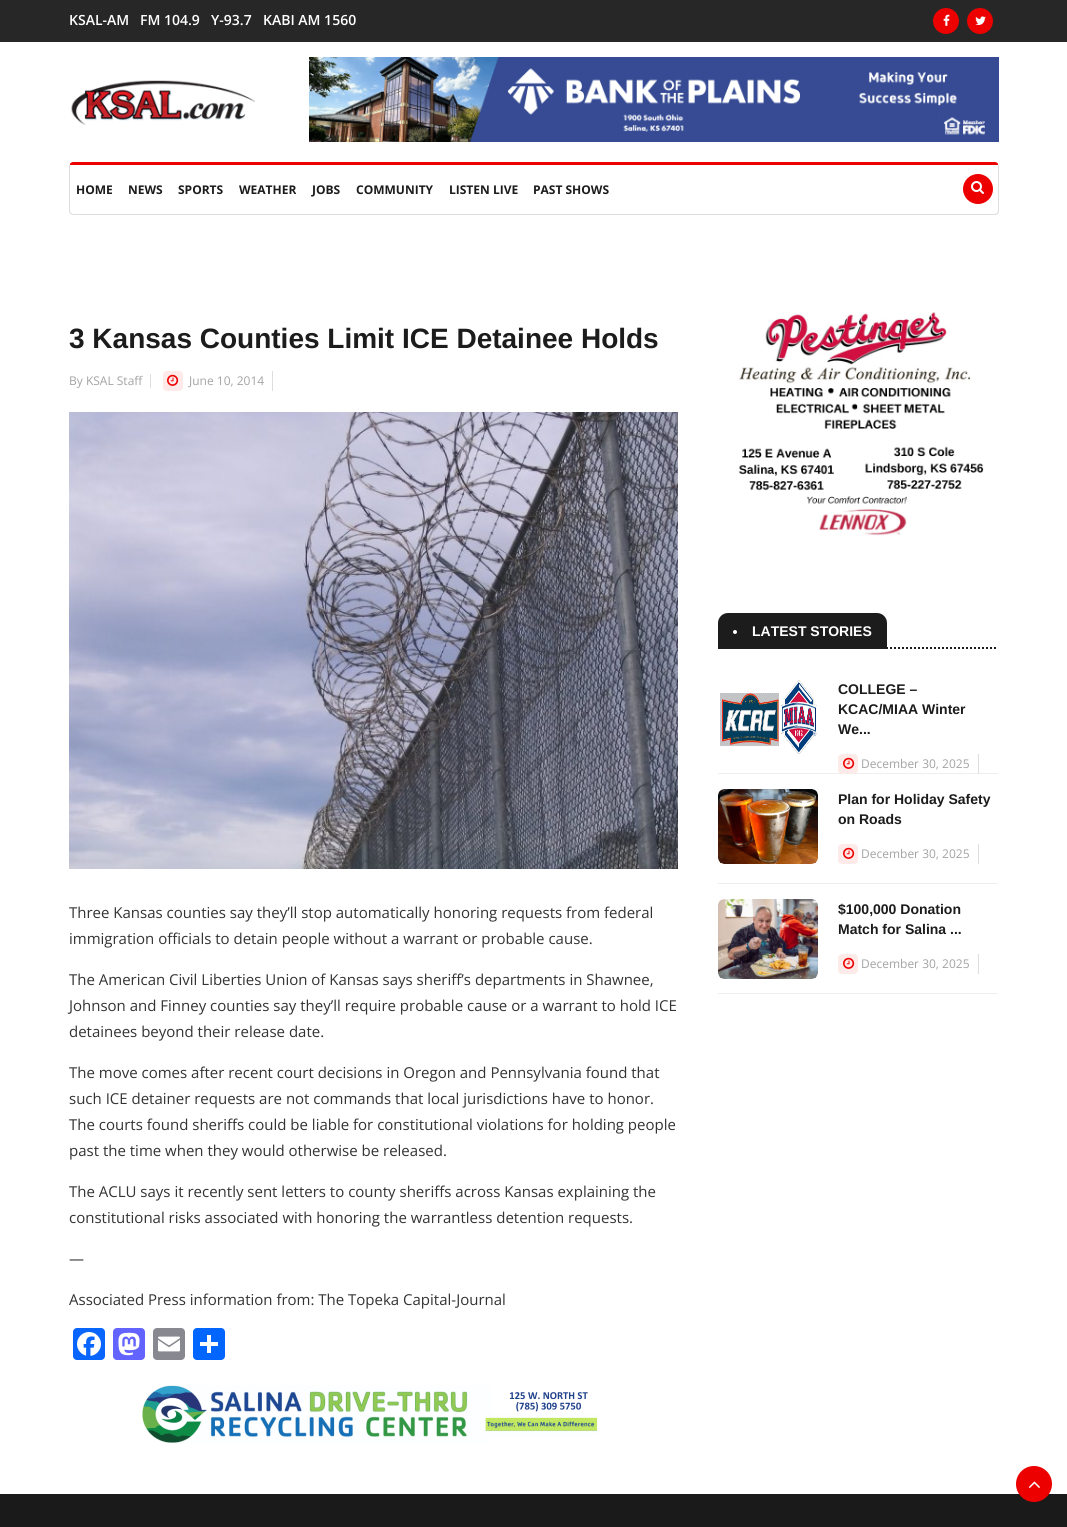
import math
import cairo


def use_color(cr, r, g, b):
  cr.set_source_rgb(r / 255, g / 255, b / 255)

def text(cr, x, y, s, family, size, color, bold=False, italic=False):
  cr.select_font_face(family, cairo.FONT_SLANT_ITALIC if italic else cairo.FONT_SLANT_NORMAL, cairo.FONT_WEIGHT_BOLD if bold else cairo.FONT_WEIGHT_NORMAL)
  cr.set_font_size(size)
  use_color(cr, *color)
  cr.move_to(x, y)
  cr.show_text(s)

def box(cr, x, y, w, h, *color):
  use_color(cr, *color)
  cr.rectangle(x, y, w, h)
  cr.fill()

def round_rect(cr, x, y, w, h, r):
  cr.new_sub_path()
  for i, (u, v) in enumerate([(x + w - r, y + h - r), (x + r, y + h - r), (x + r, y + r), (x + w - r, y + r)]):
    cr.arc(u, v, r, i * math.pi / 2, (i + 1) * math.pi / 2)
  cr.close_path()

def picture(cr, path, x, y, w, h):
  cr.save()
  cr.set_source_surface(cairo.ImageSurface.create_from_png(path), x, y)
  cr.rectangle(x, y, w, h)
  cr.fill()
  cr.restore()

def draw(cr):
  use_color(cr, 255, 255, 255)
  cr.paint()
  box(cr, 0, 0, 1067, 42, 39, 39, 39)
  use_color(cr, 236, 0, 0)
  cr.arc(946, 21, 13, 0, 2 * math.pi)
  cr.fill()
  picture(cr, "img_01.png", 943, 14, 7, 12)
  cr.arc(980, 21, 13, 0, 2 * math.pi)
  cr.fill()
  picture(cr, "img_02.png", 975, 16, 11, 9)
  picture(cr, "img_03.png", 71, 80, 184, 45)
  picture(cr, "img_04.png", 309, 57, 690, 85)
  cr.new_path()
  cr.move_to(73, 162)
  cr.curve_to(72, 162, 70, 163, 70, 164)
  cr.line_to(70, 165)
  cr.line_to(73, 165)
  cr.line_to(995, 165)
  cr.line_to(998, 165)
  cr.line_to(998, 164)
  cr.curve_to(998, 163, 996, 162, 995, 162)
  cr.close_path()
  cr.fill()
  use_color(cr, 222, 222, 222)
  cr.new_path()
  cr.move_to(999, 211)
  cr.line_to(999, 166)
  cr.line_to(998, 164)
  cr.line_to(998, 165)
  cr.line_to(998, 211)
  cr.line_to(997, 213)
  cr.line_to(998, 214)
  cr.close_path()
  cr.fill()
  cr.new_path()
  cr.move_to(73, 215)
  cr.line_to(995, 215)
  cr.line_to(998, 214)
  cr.line_to(997, 213)
  cr.line_to(995, 214)
  cr.line_to(73, 214)
  cr.line_to(71, 213)
  cr.line_to(70, 214)
  cr.close_path()
  cr.fill()
  cr.new_path()
  cr.move_to(69, 166)
  cr.line_to(69, 211)
  cr.curve_to(69, 212, 70, 213, 70, 214)
  cr.line_to(71, 213)
  cr.line_to(70, 211)
  cr.line_to(70, 165)
  cr.line_to(70, 164)
  cr.close_path()
  cr.fill()
  use_color(cr, 236, 0, 0)
  cr.arc(978, 189, 15, 0, 2 * math.pi)
  cr.fill()
  picture(cr, "img_05.png", 971, 181, 13, 13)
  box(cr, 150, 374, 1, 14, 222, 222, 222)
  box(cr, 272, 371, 1, 20, 222, 222, 222)
  use_color(cr, 255, 234, 234)
  round_rect(cr, 163, 371, 20, 20, 4)
  cr.fill()
  picture(cr, "img_06.png", 167, 374, 12, 12)
  picture(cr, "img_07.png", 69, 412, 609, 457)
  use_color(cr, 8, 102, 255)
  round_rect(cr, 73, 1328, 32, 32, 4)
  cr.fill()
  picture(cr, "img_08.png", 77, 1332, 24, 24)
  use_color(cr, 99, 100, 255)
  round_rect(cr, 113, 1328, 32, 32, 4)
  cr.fill()
  picture(cr, "img_09.png", 118, 1332, 22, 24)
  use_color(cr, 136, 137, 144)
  round_rect(cr, 153, 1328, 32, 32, 4)
  cr.fill()
  picture(cr, "img_10.png", 158, 1336, 22, 16)
  use_color(cr, 1, 102, 255)
  round_rect(cr, 193, 1328, 32, 32, 4)
  cr.fill()
  box(cr, 207, 1335, 4, 18, 255, 255, 255)
  box(cr, 200, 1342, 18, 4, 255, 255, 255)
  picture(cr, "img_11.png", 142, 1385, 456, 58)
  picture(cr, "img_12.png", 738, 312, 246, 224)
  cr.new_path()
  cr.move_to(718, 648)
  cr.line_to(998, 648)
  use_color(cr, 28, 28, 28)
  cr.set_dash([2, 2])
  cr.stroke()
  cr.new_path()
  cr.move_to(728, 613)
  cr.line_to(877, 613)
  cr.curve_to(882.5, 613, 887, 617.5, 887, 623)
  cr.line_to(887, 649)
  cr.line_to(718, 649)
  cr.line_to(718, 623)
  cr.curve_to(718, 617.5, 722.5, 613, 728, 613)
  cr.close_path()
  cr.fill()
  use_color(cr, 255, 255, 255)
  cr.arc(735, 632, 2, 0, 2 * math.pi)
  cr.fill()
  box(cr, 718, 773, 280, 1, 238, 238, 238)
  picture(cr, "img_13.png", 720, 680, 97, 74)
  box(cr, 978, 754, 1, 20, 222, 222, 222)
  use_color(cr, 255, 234, 234)
  round_rect(cr, 838, 754, 20, 20, 4)
  cr.fill()
  picture(cr, "img_06.png", 843, 757, 12, 12)
  box(cr, 718, 883, 280, 1, 238, 238, 238)
  picture(cr, "img_14.png", 718, 789, 100, 75)
  box(cr, 978, 844, 1, 20, 222, 222, 222)
  use_color(cr, 255, 234, 234)
  round_rect(cr, 838, 844, 20, 20, 4)
  cr.fill()
  picture(cr, "img_06.png", 843, 847, 12, 12)
  box(cr, 718, 993, 280, 1, 238, 238, 238)
  picture(cr, "img_15.png", 718, 899, 100, 80)
  box(cr, 978, 954, 1, 20, 222, 222, 222)
  use_color(cr, 255, 234, 234)
  round_rect(cr, 838, 954, 20, 20, 4)
  cr.fill()
  picture(cr, "img_06.png", 843, 957, 12, 12)
  box(cr, 0, 1494, 1067, 33, 26, 26, 26)
  use_color(cr, 236, 0, 0)
  cr.arc(1034, 1484, 18, 0, 2 * math.pi)
  cr.fill()
  picture(cr, "img_16.png", 1028, 1481, 12, 7)
  text(cr, 69, 25, "KSAL-AM", "Open Sans SemiBold", 14, (255, 255, 255))
  text(cr, 140, 25, "FM 104.9", "Open Sans SemiBold", 14, (255, 255, 255))
  text(cr, 211, 25, "Y-93.7", "Open Sans SemiBold", 14, (255, 255, 255))
  text(cr, 263, 25, "KABI AM 1560", "Open Sans SemiBold", 14, (255, 255, 255))
  text(cr, 76, 194, "HOME", "Open Sans", 12, (28, 28, 28), bold=True)
  text(cr, 128, 194, "NEWS", "Open Sans", 12, (28, 28, 28), bold=True)
  text(cr, 178, 194, "SPORTS", "Open Sans", 12, (28, 28, 28), bold=True)
  text(cr, 239, 194, "WEATHER", "Open Sans", 12, (28, 28, 28), bold=True)
  text(cr, 312, 194, "JOBS", "Open Sans", 12, (28, 28, 28), bold=True)
  text(cr, 356, 194, "COMMUNITY", "Open Sans", 12, (28, 28, 28), bold=True)
  text(cr, 449, 194, "LISTEN LIVE", "Open Sans", 12, (28, 28, 28), bold=True)
  text(cr, 533, 194, "PAST SHOWS", "Open Sans", 12, (28, 28, 28), bold=True)
  text(cr, 69, 348, "3 Kansas Counties Limit ICE Detainee Holds", "Arimo", 28, (28, 28, 28), bold=True)
  text(cr, 69, 385, "By KSAL Staff", "Open Sans", 12, (163, 163, 163))
  text(cr, 189, 385, "June 10, 2014", "Open Sans", 12, (163, 163, 163))
  text(cr, 69, 918, "Three Kansas counties say they’ll stop automatically honoring requests from federal", "Open Sans", 15, (51, 51, 51))
  text(cr, 69, 944, "immigration officials to detain people without a warrant or probable cause.", "Open Sans", 15, (51, 51, 51))
  text(cr, 69, 985, "The American Civil Liberties Union of Kansas says sheriff’s departments in Shawnee,", "Open Sans", 15, (51, 51, 51))
  text(cr, 69, 1011, "Johnson and Finney counties say they’ll require probable cause or a warrant to hold ICE", "Open Sans", 15, (51, 51, 51))
  text(cr, 69, 1037, "detainees beyond their release date.", "Open Sans", 15, (51, 51, 51))
  text(cr, 69, 1078, "The move comes after recent court decisions in Oregon and Pennsylvania found that", "Open Sans", 15, (51, 51, 51))
  text(cr, 69, 1104, "such ICE detainer requests are not commands that local jurisdictions have to honor.", "Open Sans", 15, (51, 51, 51))
  text(cr, 69, 1130, "The courts found sheriffs could be liable for constitutional violations for holding people", "Open Sans", 15, (51, 51, 51))
  text(cr, 69, 1156, "past the time when they would otherwise be released.", "Open Sans", 15, (51, 51, 51))
  text(cr, 69, 1197, "The ACLU says it recently sent letters to county sheriffs across Kansas explaining the", "Open Sans", 15, (51, 51, 51))
  text(cr, 69, 1223, "constitutional risks associated with honoring the warrantless detention requests.", "Open Sans", 15, (51, 51, 51))
  text(cr, 69, 1264, "—", "Open Sans", 15, (51, 51, 51))
  text(cr, 69, 1305, "Associated Press information from: The Topeka Capital-Journal", "Open Sans", 15, (51, 51, 51))
  text(cr, 752, 636, "LATEST STORIES", "Arimo", 14, (255, 255, 255), bold=True)
  text(cr, 838, 694, "COLLEGE –", "Arimo", 14, (28, 28, 28), bold=True)
  text(cr, 838, 714, "KCAC/MIAA Winter", "Arimo", 14, (28, 28, 28), bold=True)
  text(cr, 838, 734, "We...", "Arimo", 14, (28, 28, 28), bold=True)
  text(cr, 861, 768, "December 30, 2025", "Open Sans", 12, (163, 163, 163))
  text(cr, 838, 804, "Plan for Holiday Safety", "Arimo", 14, (28, 28, 28), bold=True)
  text(cr, 838, 824, "on Roads", "Arimo", 14, (28, 28, 28), bold=True)
  text(cr, 861, 858, "December 30, 2025", "Open Sans", 12, (163, 163, 163))
  text(cr, 838, 914, "$100,000 Donation", "Arimo", 14, (28, 28, 28), bold=True)
  text(cr, 838, 934, "Match for Salina ...", "Arimo", 14, (28, 28, 28), bold=True)
  text(cr, 861, 968, "December 30, 2025", "Open Sans", 12, (163, 163, 163))


surface = cairo.ImageSurface(cairo.FORMAT_RGB24, 1067, 1527)
cr = cairo.Context(surface)
options = cairo.FontOptions()
options.set_hint_metrics(cairo.HINT_METRICS_OFF)
options.set_hint_style(cairo.HINT_STYLE_NONE)
cr.set_font_options(options)
cr.set_miter_limit(4)
draw(cr)
surface.write_to_png("out.png")
